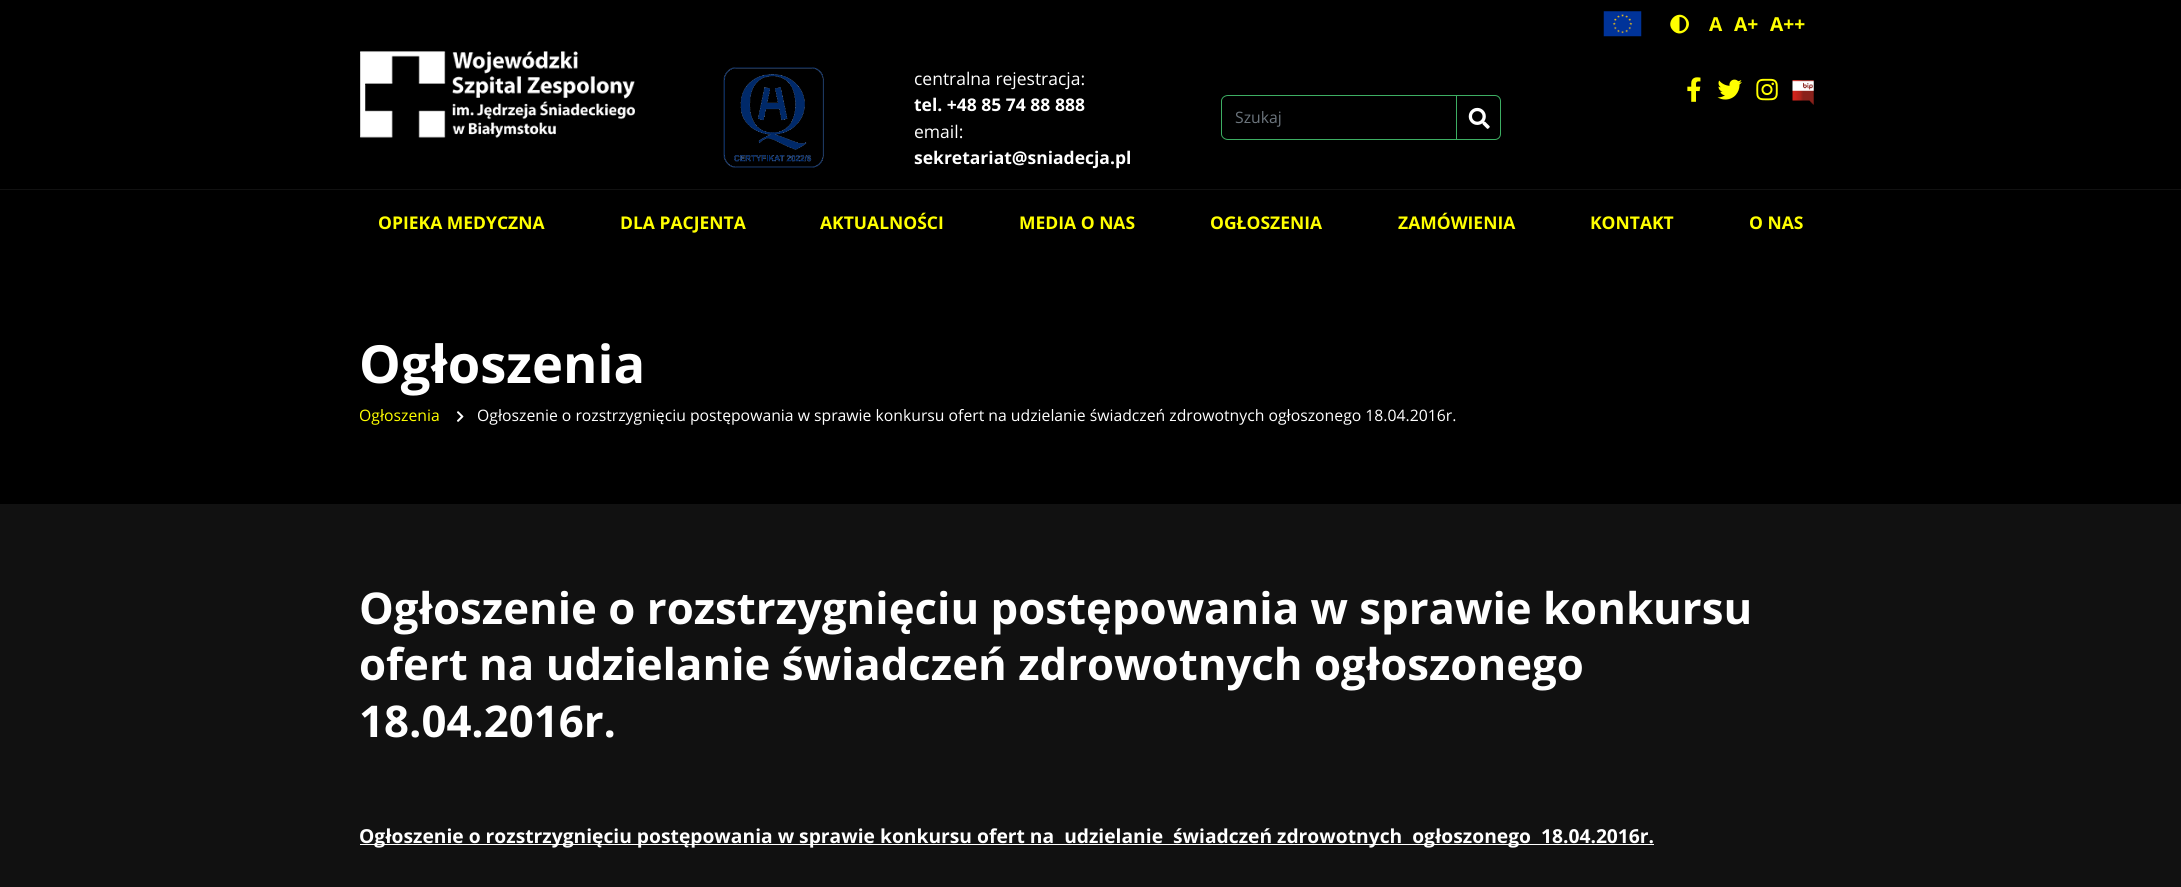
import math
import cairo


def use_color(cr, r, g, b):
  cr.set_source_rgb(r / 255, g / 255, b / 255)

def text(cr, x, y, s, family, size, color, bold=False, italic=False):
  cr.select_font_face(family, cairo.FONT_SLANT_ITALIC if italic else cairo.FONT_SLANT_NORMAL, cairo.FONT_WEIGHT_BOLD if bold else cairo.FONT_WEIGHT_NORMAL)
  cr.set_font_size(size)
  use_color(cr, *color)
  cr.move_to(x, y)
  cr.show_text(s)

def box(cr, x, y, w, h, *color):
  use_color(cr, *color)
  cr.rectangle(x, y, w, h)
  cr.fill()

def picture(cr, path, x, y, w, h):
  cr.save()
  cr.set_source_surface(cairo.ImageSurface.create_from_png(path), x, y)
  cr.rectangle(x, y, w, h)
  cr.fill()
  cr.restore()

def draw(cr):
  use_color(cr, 17, 17, 17)
  cr.paint()
  box(cr, 0, 0, 2181, 504, 0, 0, 0)
  box(cr, 0, 189, 2181, 1, 17, 17, 17)
  picture(cr, "img_01.png", 1603, 11, 39, 26)
  use_color(cr, 255, 255, 0)
  cr.new_path()
  cr.move_to(1673, 30.5)
  cr.curve_to(1664.5, 22, 1677.5, 9, 1686, 17.5)
  cr.curve_to(1695, 26, 1681.5, 39.5, 1673, 30.5)
  cr.close_path()
  cr.move_to(1679.5, 31)
  cr.curve_to(1688.5, 31, 1688.5, 17, 1679.5, 17)
  cr.close_path()
  cr.fill()
  picture(cr, "img_02.png", 1687, 77, 14, 25)
  picture(cr, "img_03.png", 1717, 79, 25, 21)
  picture(cr, "img_04.png", 1756, 78, 22, 23)
  picture(cr, "img_05.png", 1792, 80, 22, 25)
  picture(cr, "img_06.png", 360, 51, 275, 87)
  picture(cr, "img_07.png", 723, 67, 101, 101)
  use_color(cr, 61, 174, 99)
  cr.set_fill_rule(cairo.FILL_RULE_EVEN_ODD)
  cr.new_path()
  cr.move_to(1228, 95)
  cr.line_to(1456, 95)
  cr.line_to(1456, 140)
  cr.line_to(1228, 140)
  cr.curve_to(1224, 140, 1221, 137, 1221, 134)
  cr.line_to(1221, 101)
  cr.curve_to(1221, 98, 1224, 95, 1228, 95)
  cr.close_path()
  cr.move_to(1228, 96)
  cr.line_to(1456, 96)
  cr.line_to(1456, 139)
  cr.line_to(1228, 139)
  cr.curve_to(1225, 139, 1222, 137, 1222, 134)
  cr.line_to(1222, 101)
  cr.curve_to(1222, 98, 1225, 96, 1228, 96)
  cr.close_path()
  cr.fill()
  cr.new_path()
  cr.move_to(1456.5, 95.5)
  cr.line_to(1495, 95.5)
  cr.curve_to(1498, 95.5, 1500.5, 98, 1500.5, 101)
  cr.line_to(1500.5, 134)
  cr.curve_to(1500.5, 137, 1498, 139.5, 1495, 139.5)
  cr.line_to(1456.5, 139.5)
  cr.close_path()
  cr.set_line_width(1)
  cr.stroke()
  picture(cr, "img_08.png", 1468, 107, 22, 22)
  picture(cr, "img_09.png", 457, 411, 7, 11)
  box(cr, 360, 844, 1294, 1, 255, 255, 255)
  text(cr, 1709, 31, "A", "Open Sans", 19.25, (255, 255, 0), bold=True)
  text(cr, 1734, 31, "A+", "Open Sans", 19.25, (255, 255, 0), bold=True)
  text(cr, 1770, 31, "A++", "Open Sans", 19.25, (255, 255, 0), bold=True)
  text(cr, 914, 85, "centralna rejestracja:", "Open Sans", 17.5, (255, 255, 255))
  text(cr, 914, 111, "tel. +48 85 74 88 888", "Open Sans", 17.5, (255, 255, 255), bold=True)
  text(cr, 914, 138, "email:", "Open Sans", 17.5, (255, 255, 255))
  text(cr, 914, 164, "sekretariat@sniadecja.pl", "Open Sans", 17.5, (255, 255, 255), bold=True)
  text(cr, 1235, 123, "Szukaj", "Open Sans", 15.75, (108, 117, 125))
  text(cr, 378, 229, "OPIEKA MEDYCZNA", "Open Sans", 17.5, (255, 255, 0), bold=True)
  text(cr, 620, 229, "DLA PACJENTA", "Open Sans", 17.5, (255, 255, 0), bold=True)
  text(cr, 820, 229, "AKTUALNOŚCI", "Open Sans", 17.5, (255, 255, 0), bold=True)
  text(cr, 1019, 229, "MEDIA O NAS", "Open Sans", 17.5, (255, 255, 0), bold=True)
  text(cr, 1210, 229, "OGŁOSZENIA", "Open Sans", 17.5, (255, 255, 0), bold=True)
  text(cr, 1398, 229, "ZAMÓWIENIA", "Open Sans", 17.5, (255, 255, 0), bold=True)
  text(cr, 1590, 229, "KONTAKT", "Open Sans", 17.5, (255, 255, 0), bold=True)
  text(cr, 1749, 229, "O NAS", "Open Sans", 17.5, (255, 255, 0), bold=True)
  text(cr, 359, 383, "Ogłoszenia", "Open Sans", 52.5, (255, 255, 255), bold=True)
  text(cr, 359, 421, "Ogłoszenia", "Open Sans", 15.75, (255, 255, 0))
  text(cr, 477, 421, "Ogłoszenie o rozstrzygnięciu postępowania w sprawie konkursu ofert na udzielanie świadczeń zdrowotnych ogłoszonego 18.04.2016r.", "Open Sans", 15.75, (255, 255, 255))
  text(cr, 359, 624, "Ogłoszenie o rozstrzygnięciu postępowania w sprawie konkursu", "Open Sans", 43.75, (255, 255, 255), bold=True)
  text(cr, 359, 680, "ofert na udzielanie świadczeń zdrowotnych ogłoszonego", "Open Sans", 43.75, (255, 255, 255), bold=True)
  text(cr, 359, 737, "18.04.2016r.", "Open Sans", 43.75, (255, 255, 255), bold=True)
  text(cr, 359, 843, "Ogłoszenie o rozstrzygnięciu postępowania w sprawie konkursu ofert na  udzielanie  świadczeń zdrowotnych  ogłoszonego  18.04.2016r.", "Open Sans", 19.25, (255, 255, 255), bold=True)


surface = cairo.ImageSurface(cairo.FORMAT_RGB24, 2181, 887)
cr = cairo.Context(surface)
options = cairo.FontOptions()
options.set_hint_metrics(cairo.HINT_METRICS_OFF)
options.set_hint_style(cairo.HINT_STYLE_NONE)
cr.set_font_options(options)
cr.set_miter_limit(4)
draw(cr)
surface.write_to_png("out.png")
